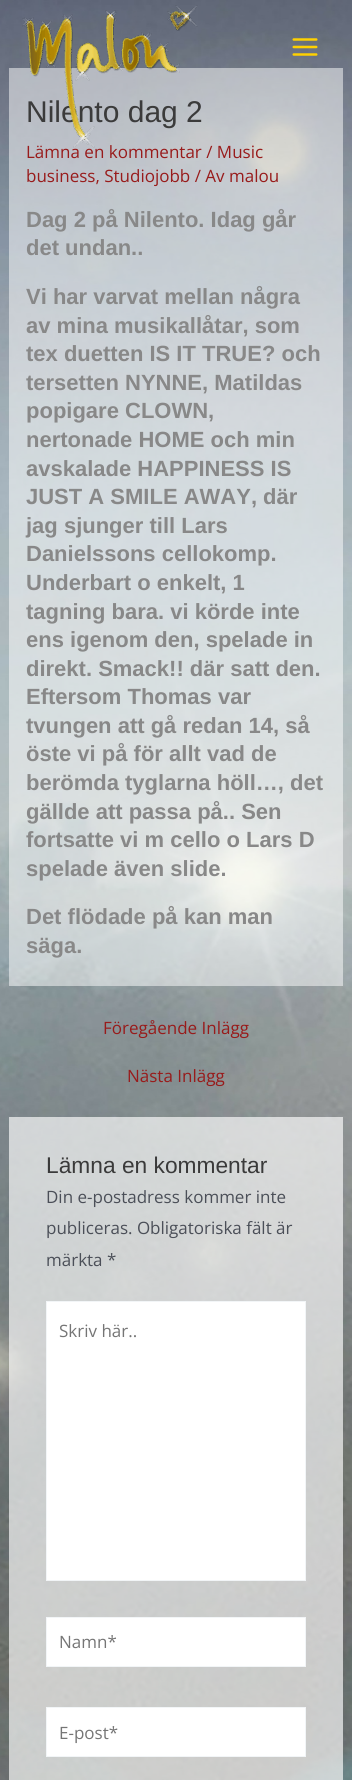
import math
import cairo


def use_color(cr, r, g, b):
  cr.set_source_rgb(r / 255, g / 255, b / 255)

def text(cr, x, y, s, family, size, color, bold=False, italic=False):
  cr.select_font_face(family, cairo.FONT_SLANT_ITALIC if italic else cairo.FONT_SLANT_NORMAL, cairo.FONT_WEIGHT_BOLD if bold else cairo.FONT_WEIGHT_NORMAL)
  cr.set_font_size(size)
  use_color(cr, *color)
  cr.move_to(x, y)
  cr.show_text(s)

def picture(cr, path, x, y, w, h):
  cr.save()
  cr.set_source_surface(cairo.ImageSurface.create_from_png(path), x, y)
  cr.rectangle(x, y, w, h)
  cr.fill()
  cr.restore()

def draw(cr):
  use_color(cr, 255, 255, 255)
  cr.paint()
  picture(cr, "img_01.png", 0, 0, 352, 1780)
  picture(cr, "img_03.png", 292, 38, 26, 18)
  cr.set_source_rgba(1, 1, 1, 0.5)
  cr.rectangle(9, 68, 334, 918)
  cr.fill()
  cr.set_source_rgba(1, 1, 1, 0.66)
  cr.rectangle(9, 1117, 334, 663)
  cr.fill()
  use_color(cr, 255, 255, 255)
  cr.rectangle(46.5, 1301.5, 259, 279)
  cr.fill_preserve()
  use_color(cr, 242, 245, 247)
  cr.set_line_width(1)
  cr.stroke()
  use_color(cr, 255, 255, 255)
  cr.rectangle(46.5, 1617.5, 259, 49)
  cr.fill_preserve()
  use_color(cr, 242, 245, 247)
  cr.stroke()
  use_color(cr, 255, 255, 255)
  cr.rectangle(46.5, 1707.5, 259, 49)
  cr.fill_preserve()
  use_color(cr, 242, 245, 247)
  cr.stroke()
  text(cr, 26, 122, "Nilento dag 2", "Liberation Sans", 30, (58, 58, 58))
  text(cr, 26, 158, "Lämna en kommentar / Music", "Open Sans", 17, (152, 27, 27))
  picture(cr, "img_02.png", 22, 5, 176, 143)
  text(cr, 26, 182, "business, Studiojobb / Av malou", "Open Sans", 17, (152, 27, 27))
  text(cr, 26, 227, "Dag 2 på Nilento. Idag går", "Liberation Sans", 22, (136, 136, 136), bold=True)
  text(cr, 26, 255, "det undan..", "Liberation Sans", 22, (136, 136, 136), bold=True)
  text(cr, 26, 304, "Vi har varvat mellan några", "Liberation Sans", 22, (136, 136, 136), bold=True)
  text(cr, 26, 333, "av mina musikallåtar, som", "Liberation Sans", 22, (136, 136, 136), bold=True)
  text(cr, 26, 361, "tex duetten IS IT TRUE? och", "Liberation Sans", 22, (136, 136, 136), bold=True)
  text(cr, 26, 390, "tersetten NYNNE, Matildas", "Liberation Sans", 22, (136, 136, 136), bold=True)
  text(cr, 26, 418, "popigare CLOWN,", "Liberation Sans", 22, (136, 136, 136), bold=True)
  text(cr, 26, 447, "nertonade HOME och min", "Liberation Sans", 22, (136, 136, 136), bold=True)
  text(cr, 26, 476, "avskalade HAPPINESS IS", "Liberation Sans", 22, (136, 136, 136), bold=True)
  text(cr, 26, 504, "JUST A SMILE AWAY, där", "Liberation Sans", 22, (136, 136, 136), bold=True)
  text(cr, 26, 533, "jag sjunger till Lars", "Liberation Sans", 22, (136, 136, 136), bold=True)
  text(cr, 26, 561, "Danielssons cellokomp.", "Liberation Sans", 22, (136, 136, 136), bold=True)
  text(cr, 26, 590, "Underbart o enkelt, 1", "Liberation Sans", 22, (136, 136, 136), bold=True)
  text(cr, 26, 619, "tagning bara. vi körde inte", "Liberation Sans", 22, (136, 136, 136), bold=True)
  text(cr, 26, 647, "ens igenom den, spelade in", "Liberation Sans", 22, (136, 136, 136), bold=True)
  text(cr, 26, 676, "direkt. Smack!! där satt den.", "Liberation Sans", 22, (136, 136, 136), bold=True)
  text(cr, 26, 704, "Eftersom Thomas var", "Liberation Sans", 22, (136, 136, 136), bold=True)
  text(cr, 26, 733, "tvungen att gå redan 14, så", "Liberation Sans", 22, (136, 136, 136), bold=True)
  text(cr, 26, 761, "öste vi på för allt vad de", "Liberation Sans", 22, (136, 136, 136), bold=True)
  text(cr, 26, 790, "berömda tyglarna höll…, det", "Liberation Sans", 22, (136, 136, 136), bold=True)
  text(cr, 26, 819, "gällde att passa på.. Sen", "Liberation Sans", 22, (136, 136, 136), bold=True)
  text(cr, 26, 847, "fortsatte vi m cello o Lars D", "Liberation Sans", 22, (136, 136, 136), bold=True)
  text(cr, 26, 876, "spelade även slide.", "Liberation Sans", 22, (136, 136, 136), bold=True)
  text(cr, 26, 924, "Det flödade på kan man", "Liberation Sans", 22, (136, 136, 136), bold=True)
  text(cr, 26, 953, "säga.", "Liberation Sans", 22, (136, 136, 136), bold=True)
  text(cr, 103, 1034, "Föregående Inlägg", "Open Sans", 17, (152, 27, 27))
  text(cr, 127, 1082, "Nästa Inlägg", "Open Sans", 17, (152, 27, 27))
  text(cr, 46, 1173, "Lämna en kommentar", "Liberation Sans", 22.75, (58, 58, 58))
  text(cr, 46, 1203, "Din e-postadress kommer inte", "Open Sans", 17, (75, 79, 88))
  text(cr, 46, 1234, "publiceras. Obligatoriska fält är", "Open Sans", 17, (75, 79, 88))
  text(cr, 46, 1266, "märkta *", "Open Sans", 17, (75, 79, 88))
  text(cr, 59, 1337, "Skriv här..", "Open Sans", 17, (117, 117, 117))
  text(cr, 59, 1648, "Namn*", "Open Sans", 17, (117, 117, 117))
  text(cr, 59, 1739, "E-post*", "Open Sans", 17, (117, 117, 117))


surface = cairo.ImageSurface(cairo.FORMAT_RGB24, 352, 1780)
cr = cairo.Context(surface)
options = cairo.FontOptions()
options.set_hint_metrics(cairo.HINT_METRICS_OFF)
options.set_hint_style(cairo.HINT_STYLE_NONE)
cr.set_font_options(options)
cr.set_miter_limit(4)
draw(cr)
surface.write_to_png("out.png")
